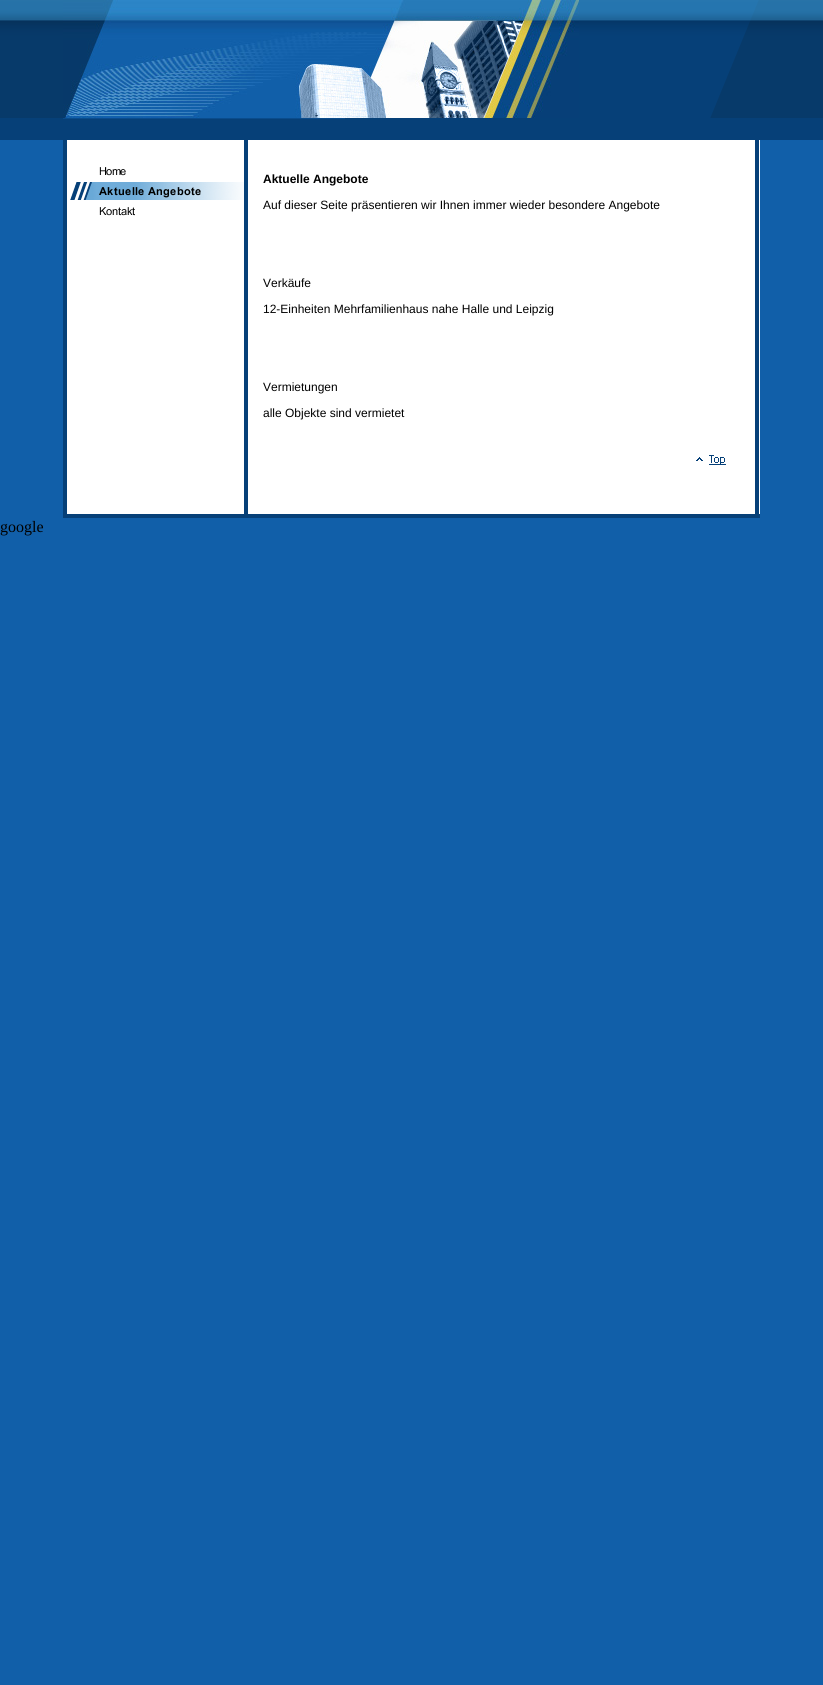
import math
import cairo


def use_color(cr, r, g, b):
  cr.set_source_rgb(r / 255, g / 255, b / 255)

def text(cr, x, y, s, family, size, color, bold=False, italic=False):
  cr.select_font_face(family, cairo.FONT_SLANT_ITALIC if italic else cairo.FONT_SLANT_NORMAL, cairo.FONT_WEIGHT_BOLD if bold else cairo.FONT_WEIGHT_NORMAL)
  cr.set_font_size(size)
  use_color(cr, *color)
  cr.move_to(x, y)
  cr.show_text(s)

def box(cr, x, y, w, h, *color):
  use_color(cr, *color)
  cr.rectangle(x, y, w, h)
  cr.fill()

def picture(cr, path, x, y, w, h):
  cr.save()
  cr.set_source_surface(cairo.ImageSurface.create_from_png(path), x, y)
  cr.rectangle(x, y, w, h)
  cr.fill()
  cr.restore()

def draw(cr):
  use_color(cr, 17, 95, 169)
  cr.paint()
  picture(cr, "img_01.png", 0, 0, 823, 140)
  box(cr, 248, 140, 512, 374, 255, 255, 255)
  box(cr, 63, 514, 697, 4, 6, 64, 120)
  picture(cr, "img_02.png", 63, 0, 697, 140)
  picture(cr, "img_03.png", 63, 0, 516, 118)
  picture(cr, "img_04.png", 710, 0, 50, 118)
  box(cr, 63, 118, 282, 1, 10, 76, 140)
  picture(cr, "img_05.png", 63, 140, 185, 340)
  picture(cr, "img_06.png", 99, 167, 27, 9)
  picture(cr, "img_07.png", 70, 182, 174, 18)
  picture(cr, "img_08.png", 99, 207, 36, 9)
  picture(cr, "img_09.png", 696, 455, 30, 10)
  box(cr, 755, 140, 4, 374, 6, 64, 120)
  picture(cr, "img_10.png", 63, 480, 185, 34)
  text(cr, 263, 183, "Aktuelle Angebote", "Liberation Sans", 12, (0, 0, 0), bold=True)
  text(cr, 263, 209, "Auf dieser Seite präsentieren wir Ihnen immer wieder besondere Angebote", "Liberation Sans", 12, (0, 0, 0))
  text(cr, 263, 287, "Verkäufe", "Liberation Sans", 12, (0, 0, 0))
  text(cr, 263, 313, "12-Einheiten Mehrfamilienhaus nahe Halle und Leipzig", "Liberation Sans", 12, (0, 0, 0))
  text(cr, 263, 391, "Vermietungen", "Liberation Sans", 12, (0, 0, 0))
  text(cr, 263, 417, "alle Objekte sind vermietet", "Liberation Sans", 12, (0, 0, 0))
  text(cr, 0, 532, "google", "Liberation Serif", 16, (0, 0, 0))


surface = cairo.ImageSurface(cairo.FORMAT_RGB24, 823, 1685)
cr = cairo.Context(surface)
options = cairo.FontOptions()
options.set_hint_metrics(cairo.HINT_METRICS_OFF)
options.set_hint_style(cairo.HINT_STYLE_NONE)
cr.set_font_options(options)
cr.set_miter_limit(4)
draw(cr)
surface.write_to_png("out.png")
